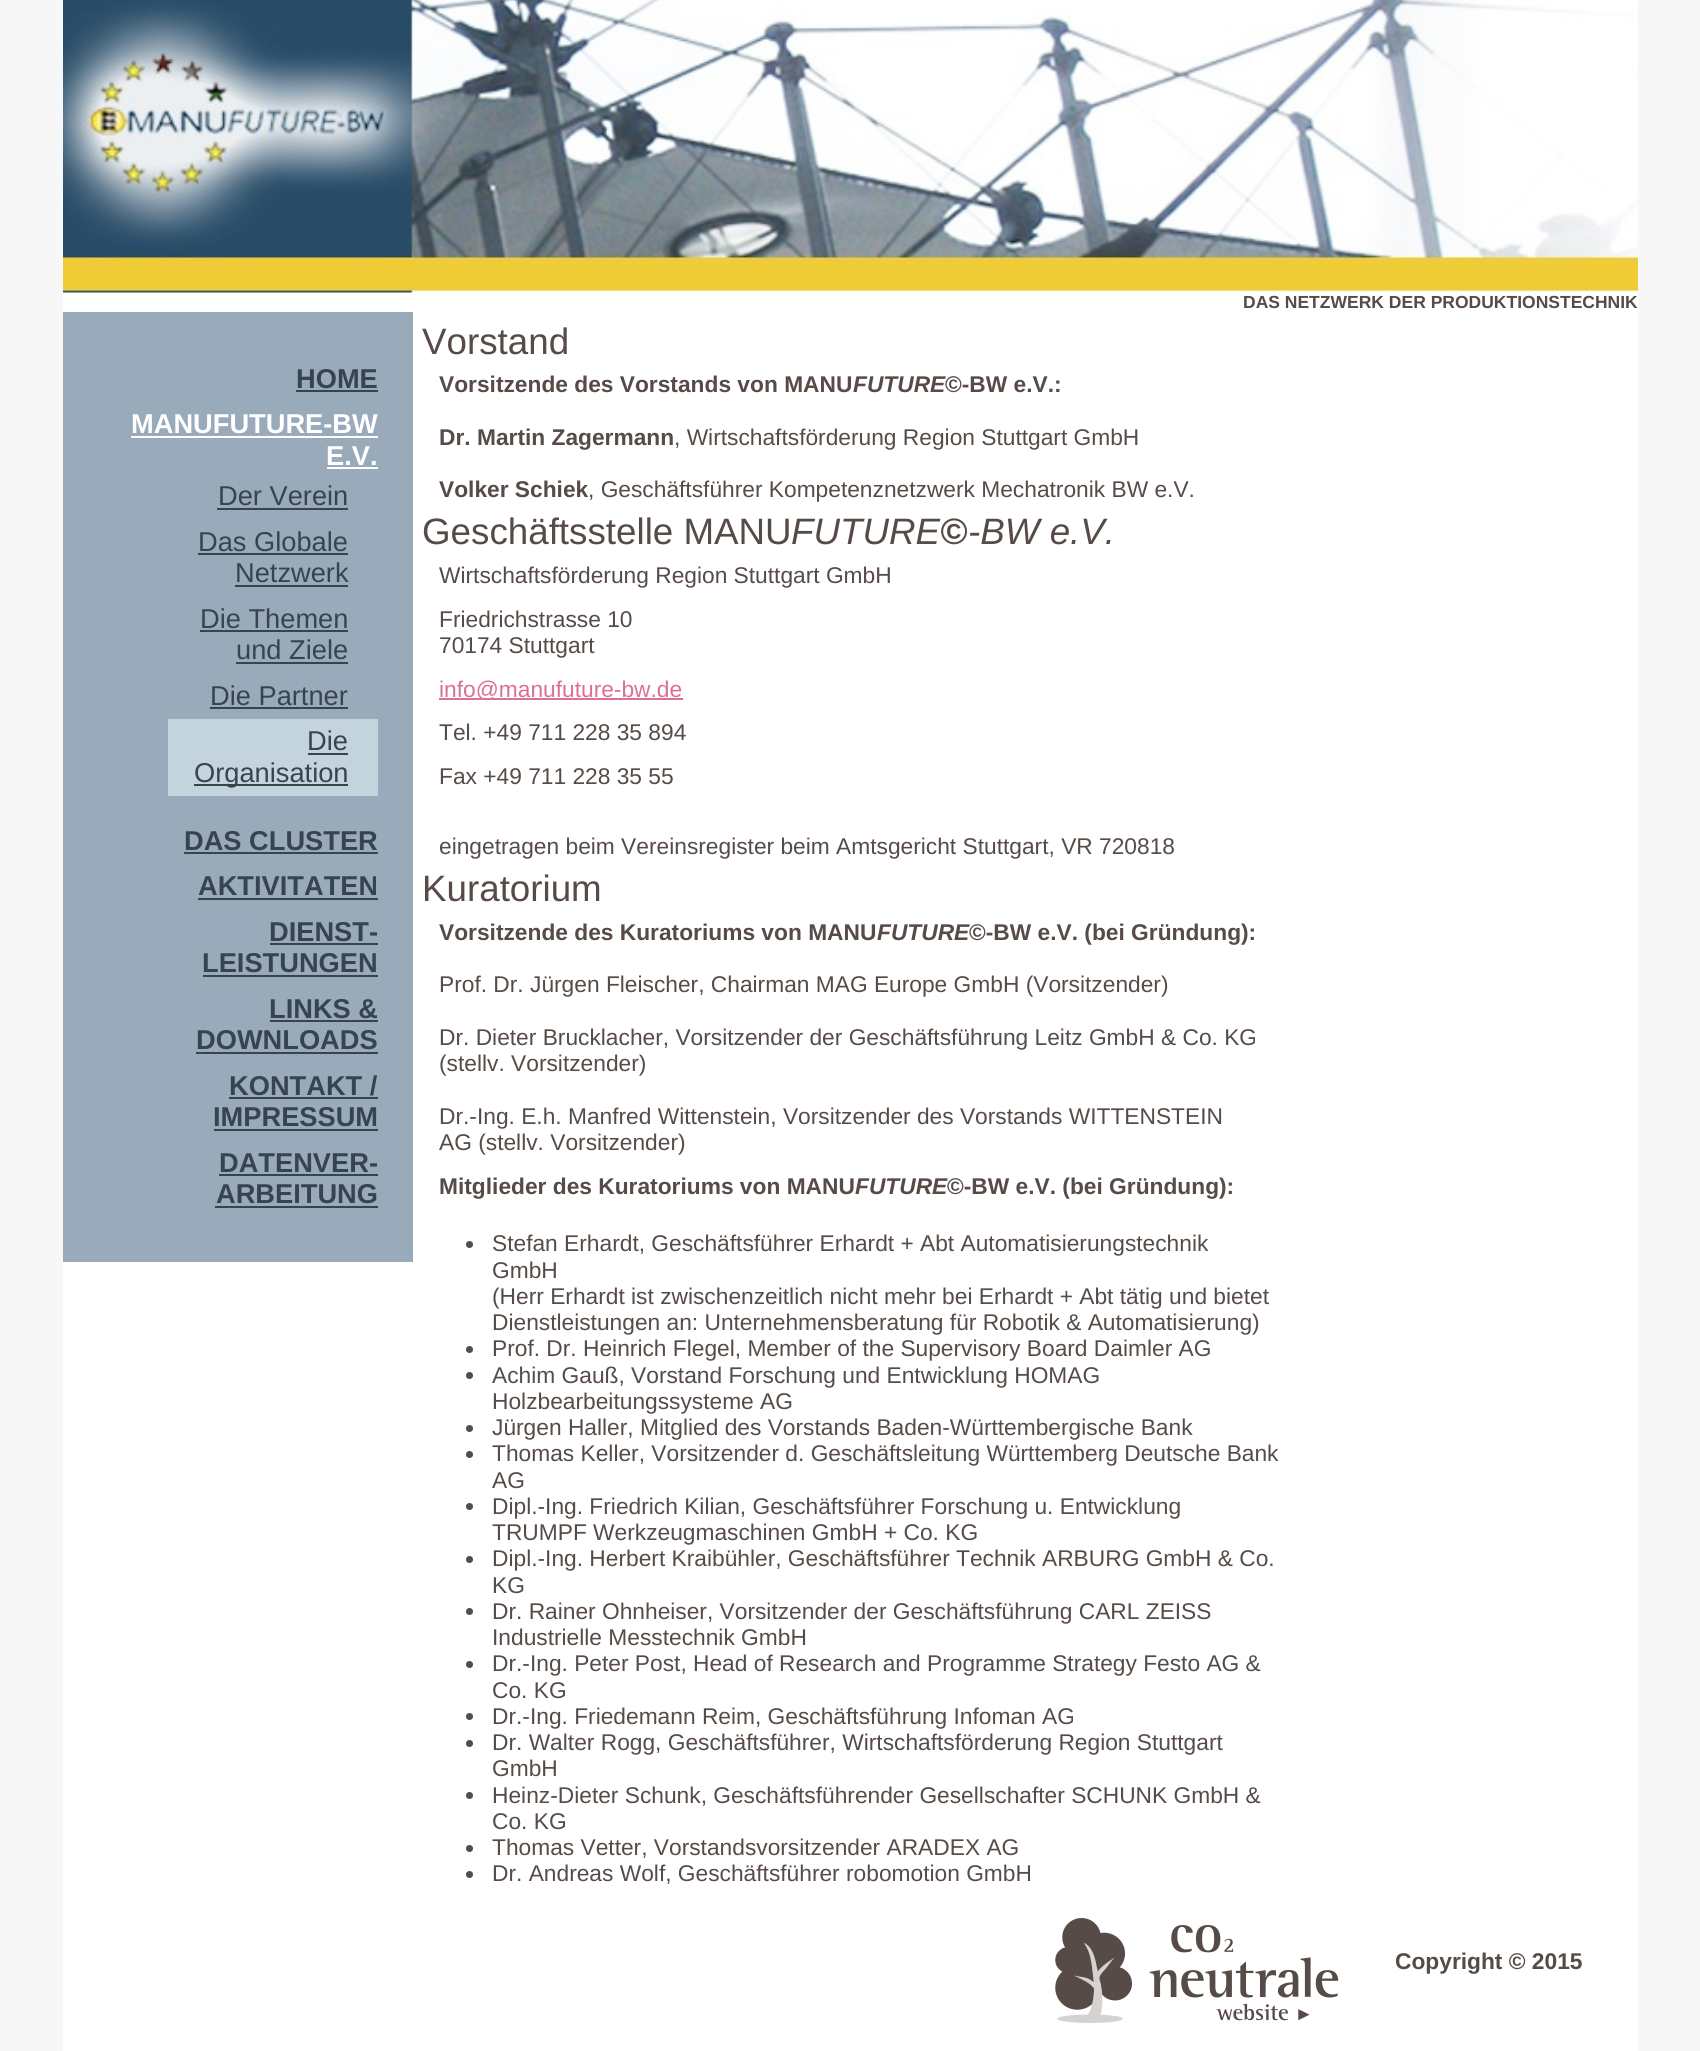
import math
import cairo


def use_color(cr, r, g, b):
  cr.set_source_rgb(r / 255, g / 255, b / 255)

def text(cr, x, y, s, family, size, color, bold=False, italic=False):
  cr.select_font_face(family, cairo.FONT_SLANT_ITALIC if italic else cairo.FONT_SLANT_NORMAL, cairo.FONT_WEIGHT_BOLD if bold else cairo.FONT_WEIGHT_NORMAL)
  cr.set_font_size(size)
  use_color(cr, *color)
  cr.move_to(x, y)
  cr.show_text(s)

def box(cr, x, y, w, h, *color):
  use_color(cr, *color)
  cr.rectangle(x, y, w, h)
  cr.fill()

def picture(cr, path, x, y, w, h):
  cr.save()
  cr.set_source_surface(cairo.ImageSurface.create_from_png(path), x, y)
  cr.rectangle(x, y, w, h)
  cr.fill()
  cr.restore()

def draw(cr):
  use_color(cr, 247, 247, 247)
  cr.paint()
  box(cr, 63, 292, 1575, 1759, 255, 255, 255)
  picture(cr, "img_01.png", 63, 0, 1575, 293)
  box(cr, 63, 312, 350, 950, 153, 170, 187)
  box(cr, 296, 390, 82, 2, 55, 68, 79)
  box(cr, 131, 436, 247, 2, 255, 255, 255)
  box(cr, 327, 467, 51, 2, 255, 255, 255)
  box(cr, 217, 508, 131, 2, 55, 68, 79)
  box(cr, 198, 553, 150, 2, 55, 68, 79)
  box(cr, 235, 585, 113, 2, 55, 68, 79)
  box(cr, 200, 630, 148, 2, 55, 68, 79)
  box(cr, 236, 662, 112, 2, 55, 68, 79)
  box(cr, 210, 707, 138, 2, 55, 68, 79)
  box(cr, 168, 719, 210, 77, 196, 212, 220)
  box(cr, 308, 753, 40, 2, 55, 68, 79)
  box(cr, 194, 784, 154, 2, 55, 68, 79)
  box(cr, 184, 852, 194, 2, 55, 68, 79)
  box(cr, 198, 898, 180, 2, 55, 68, 79)
  box(cr, 270, 943, 108, 2, 55, 68, 79)
  box(cr, 203, 975, 175, 2, 55, 68, 79)
  box(cr, 270, 1020, 108, 2, 55, 68, 79)
  box(cr, 196, 1052, 182, 2, 55, 68, 79)
  box(cr, 229, 1097, 149, 2, 55, 68, 79)
  box(cr, 214, 1129, 164, 2, 55, 68, 79)
  box(cr, 219, 1174, 159, 2, 55, 68, 79)
  box(cr, 215, 1206, 163, 2, 55, 68, 79)
  box(cr, 439, 698, 244, 2, 219, 112, 147)
  use_color(cr, 86, 75, 71)
  cr.arc(469.5, 1244.5, 3.5, 0, 2 * math.pi)
  cr.fill()
  cr.arc(469.5, 1349.5, 3.5, 0, 2 * math.pi)
  cr.fill()
  cr.arc(469.5, 1375.5, 3.5, 0, 2 * math.pi)
  cr.fill()
  cr.arc(469.5, 1428.5, 3.5, 0, 2 * math.pi)
  cr.fill()
  cr.arc(469.5, 1454.5, 3.5, 0, 2 * math.pi)
  cr.fill()
  cr.arc(469.5, 1506.5, 3.5, 0, 2 * math.pi)
  cr.fill()
  cr.arc(469.5, 1559.5, 3.5, 0, 2 * math.pi)
  cr.fill()
  cr.arc(469.5, 1611.5, 3.5, 0, 2 * math.pi)
  cr.fill()
  cr.arc(469.5, 1664.5, 3.5, 0, 2 * math.pi)
  cr.fill()
  cr.arc(469.5, 1716.5, 3.5, 0, 2 * math.pi)
  cr.fill()
  cr.arc(469.5, 1743.5, 3.5, 0, 2 * math.pi)
  cr.fill()
  cr.arc(469.5, 1795.5, 3.5, 0, 2 * math.pi)
  cr.fill()
  cr.arc(469.5, 1848.5, 3.5, 0, 2 * math.pi)
  cr.fill()
  cr.arc(469.5, 1874.5, 3.5, 0, 2 * math.pi)
  cr.fill()
  picture(cr, "img_02.png", 1055, 1918, 284, 105)
  text(cr, 1243, 308, "DAS NETZWERK DER PRODUKTIONSTECHNIK", "Liberation Sans", 17.5, (86, 75, 71), bold=True)
  text(cr, 296, 388, "HOME", "Liberation Sans", 27.25, (55, 68, 79), bold=True)
  text(cr, 131, 433, "MANUFUTURE-BW", "Liberation Sans", 27.25, (255, 255, 255), bold=True)
  text(cr, 326, 465, "E.V.", "Liberation Sans", 27.25, (255, 255, 255), bold=True)
  text(cr, 218, 505, "Der Verein", "Liberation Sans", 27.25, (55, 68, 79))
  text(cr, 198, 551, "Das Globale", "Liberation Sans", 27.25, (55, 68, 79))
  text(cr, 235, 582, "Netzwerk", "Liberation Sans", 27.25, (55, 68, 79))
  text(cr, 200, 628, "Die Themen", "Liberation Sans", 27.25, (55, 68, 79))
  text(cr, 236, 659, "und Ziele", "Liberation Sans", 27.25, (55, 68, 79))
  text(cr, 210, 705, "Die Partner", "Liberation Sans", 27.25, (55, 68, 79))
  text(cr, 307, 750, "Die", "Liberation Sans", 27.25, (55, 68, 79))
  text(cr, 194, 782, "Organisation", "Liberation Sans", 27.25, (55, 68, 79))
  text(cr, 184, 850, "DAS CLUSTER", "Liberation Sans", 27.25, (55, 68, 79), bold=True)
  text(cr, 198, 895, "AKTIVITATEN", "Liberation Sans", 27.25, (55, 68, 79), bold=True)
  text(cr, 269, 941, "DIENST-", "Liberation Sans", 27.25, (55, 68, 79), bold=True)
  text(cr, 202, 972, "LEISTUNGEN", "Liberation Sans", 27.25, (55, 68, 79), bold=True)
  text(cr, 269, 1018, "LINKS &", "Liberation Sans", 27.25, (55, 68, 79), bold=True)
  text(cr, 196, 1049, "DOWNLOADS", "Liberation Sans", 27.25, (55, 68, 79), bold=True)
  text(cr, 229, 1095, "KONTAKT /", "Liberation Sans", 27.25, (55, 68, 79), bold=True)
  text(cr, 213, 1126, "IMPRESSUM", "Liberation Sans", 27.25, (55, 68, 79), bold=True)
  text(cr, 219, 1172, "DATENVER-", "Liberation Sans", 27.25, (55, 68, 79), bold=True)
  text(cr, 216, 1203, "ARBEITUNG", "Liberation Sans", 27.25, (55, 68, 79), bold=True)
  text(cr, 422, 354, "Vorstand", "Liberation Sans", 36.75, (86, 75, 71))
  text(cr, 439, 392, "Vorsitzende des Vorstands von MANU", "Liberation Sans", 22.75, (86, 75, 71), bold=True)
  text(cr, 853, 392, "FUTURE", "Liberation Sans", 22.75, (86, 75, 71), bold=True, italic=True)
  text(cr, 945, 392, "©-BW e.V.:", "Liberation Sans", 22.75, (86, 75, 71), bold=True)
  text(cr, 439, 445, "Dr. Martin Zagermann", "Liberation Sans", 22.75, (86, 75, 71), bold=True)
  text(cr, 674, 445, ", Wirtschaftsförderung Region Stuttgart GmbH", "Liberation Sans", 22.75, (86, 75, 71))
  text(cr, 439, 497, "Volker Schiek", "Liberation Sans", 22.75, (86, 75, 71), bold=True)
  text(cr, 588, 497, ", Geschäftsführer Kompetenznetzwerk Mechatronik BW e.V.", "Liberation Sans", 22.75, (86, 75, 71))
  text(cr, 422, 544, "Geschäftsstelle MANU", "Liberation Sans", 36.75, (86, 75, 71))
  text(cr, 791, 544, "FUTURE", "Liberation Sans", 36.75, (86, 75, 71), italic=True)
  text(cr, 940, 544, "©", "Liberation Sans", 36.75, (86, 75, 71), bold=True, italic=True)
  text(cr, 968, 544, "-BW e.V.", "Liberation Sans", 36.75, (86, 75, 71), italic=True)
  text(cr, 439, 583, "Wirtschaftsförderung Region Stuttgart GmbH", "Liberation Sans", 22.75, (86, 75, 71))
  text(cr, 439, 627, "Friedrichstrasse 10", "Liberation Sans", 22.75, (86, 75, 71))
  text(cr, 439, 653, "70174 Stuttgart", "Liberation Sans", 22.75, (86, 75, 71))
  text(cr, 439, 697, "info@manufuture-bw.de", "Liberation Sans", 22.75, (219, 112, 147))
  text(cr, 439, 740, "Tel. +49 711 228 35 894", "Liberation Sans", 22.75, (86, 75, 71))
  text(cr, 439, 784, "Fax +49 711 228 35 55", "Liberation Sans", 22.75, (86, 75, 71))
  text(cr, 439, 854, "eingetragen beim Vereinsregister beim Amtsgericht Stuttgart, VR 720818", "Liberation Sans", 22.75, (86, 75, 71))
  text(cr, 422, 901, "Kuratorium", "Liberation Sans", 36.75, (86, 75, 71))
  text(cr, 439, 940, "Vorsitzende des Kuratoriums von MANU", "Liberation Sans", 22.75, (86, 75, 71), bold=True)
  text(cr, 877, 940, "FUTURE", "Liberation Sans", 22.75, (86, 75, 71), bold=True, italic=True)
  text(cr, 969, 940, "©-BW e.V. (bei Gründung):", "Liberation Sans", 22.75, (86, 75, 71), bold=True)
  text(cr, 439, 992, "Prof. Dr. Jürgen Fleischer, Chairman MAG Europe GmbH (Vorsitzender)", "Liberation Sans", 22.75, (86, 75, 71))
  text(cr, 439, 1045, "Dr. Dieter Brucklacher, Vorsitzender der Geschäftsführung Leitz GmbH & Co. KG", "Liberation Sans", 22.75, (86, 75, 71))
  text(cr, 439, 1071, "(stellv. Vorsitzender)", "Liberation Sans", 22.75, (86, 75, 71))
  text(cr, 439, 1124, "Dr.-Ing. E.h. Manfred Wittenstein, Vorsitzender des Vorstands WITTENSTEIN", "Liberation Sans", 22.75, (86, 75, 71))
  text(cr, 439, 1150, "AG (stellv. Vorsitzender)", "Liberation Sans", 22.75, (86, 75, 71))
  text(cr, 439, 1194, "Mitglieder des Kuratoriums von MANU", "Liberation Sans", 22.75, (86, 75, 71), bold=True)
  text(cr, 855, 1194, "FUTURE", "Liberation Sans", 22.75, (86, 75, 71), bold=True, italic=True)
  text(cr, 947, 1194, "©-BW e.V. (bei Gründung):", "Liberation Sans", 22.75, (86, 75, 71), bold=True)
  text(cr, 492, 1251, "Stefan Erhardt, Geschäftsführer Erhardt + Abt Automatisierungstechnik", "Liberation Sans", 22.75, (86, 75, 71))
  text(cr, 492, 1278, "GmbH", "Liberation Sans", 22.75, (86, 75, 71))
  text(cr, 492, 1304, "(Herr Erhardt ist zwischenzeitlich nicht mehr bei Erhardt + Abt tätig und bietet", "Liberation Sans", 22.75, (86, 75, 71))
  text(cr, 492, 1330, "Dienstleistungen an: Unternehmensberatung für Robotik & Automatisierung)", "Liberation Sans", 22.75, (86, 75, 71))
  text(cr, 492, 1356, "Prof. Dr. Heinrich Flegel, Member of the Supervisory Board Daimler AG", "Liberation Sans", 22.75, (86, 75, 71))
  text(cr, 492, 1383, "Achim Gauß, Vorstand Forschung und Entwicklung HOMAG", "Liberation Sans", 22.75, (86, 75, 71))
  text(cr, 492, 1409, "Holzbearbeitungssysteme AG", "Liberation Sans", 22.75, (86, 75, 71))
  text(cr, 492, 1435, "Jürgen Haller, Mitglied des Vorstands Baden-Württembergische Bank", "Liberation Sans", 22.75, (86, 75, 71))
  text(cr, 492, 1461, "Thomas Keller, Vorsitzender d. Geschäftsleitung Württemberg Deutsche Bank", "Liberation Sans", 22.75, (86, 75, 71))
  text(cr, 492, 1488, "AG", "Liberation Sans", 22.75, (86, 75, 71))
  text(cr, 492, 1514, "Dipl.-Ing. Friedrich Kilian, Geschäftsführer Forschung u. Entwicklung", "Liberation Sans", 22.75, (86, 75, 71))
  text(cr, 492, 1540, "TRUMPF Werkzeugmaschinen GmbH + Co. KG", "Liberation Sans", 22.75, (86, 75, 71))
  text(cr, 492, 1566, "Dipl.-Ing. Herbert Kraibühler, Geschäftsführer Technik ARBURG GmbH & Co.", "Liberation Sans", 22.75, (86, 75, 71))
  text(cr, 492, 1593, "KG", "Liberation Sans", 22.75, (86, 75, 71))
  text(cr, 492, 1619, "Dr. Rainer Ohnheiser, Vorsitzender der Geschäftsführung CARL ZEISS", "Liberation Sans", 22.75, (86, 75, 71))
  text(cr, 492, 1645, "Industrielle Messtechnik GmbH", "Liberation Sans", 22.75, (86, 75, 71))
  text(cr, 492, 1671, "Dr.-Ing. Peter Post, Head of Research and Programme Strategy Festo AG &", "Liberation Sans", 22.75, (86, 75, 71))
  text(cr, 492, 1698, "Co. KG", "Liberation Sans", 22.75, (86, 75, 71))
  text(cr, 492, 1724, "Dr.-Ing. Friedemann Reim, Geschäftsführung Infoman AG", "Liberation Sans", 22.75, (86, 75, 71))
  text(cr, 492, 1750, "Dr. Walter Rogg, Geschäftsführer, Wirtschaftsförderung Region Stuttgart", "Liberation Sans", 22.75, (86, 75, 71))
  text(cr, 492, 1776, "GmbH", "Liberation Sans", 22.75, (86, 75, 71))
  text(cr, 492, 1803, "Heinz-Dieter Schunk, Geschäftsführender Gesellschafter SCHUNK GmbH &", "Liberation Sans", 22.75, (86, 75, 71))
  text(cr, 492, 1829, "Co. KG", "Liberation Sans", 22.75, (86, 75, 71))
  text(cr, 492, 1855, "Thomas Vetter, Vorstandsvorsitzender ARADEX AG", "Liberation Sans", 22.75, (86, 75, 71))
  text(cr, 492, 1881, "Dr. Andreas Wolf, Geschäftsführer robomotion GmbH", "Liberation Sans", 22.75, (86, 75, 71))
  text(cr, 1395, 1969, "Copyright © 2015", "Liberation Sans", 22.75, (86, 75, 71), bold=True)


surface = cairo.ImageSurface(cairo.FORMAT_RGB24, 1700, 2051)
cr = cairo.Context(surface)
options = cairo.FontOptions()
options.set_hint_metrics(cairo.HINT_METRICS_OFF)
options.set_hint_style(cairo.HINT_STYLE_NONE)
cr.set_font_options(options)
cr.set_miter_limit(4)
draw(cr)
surface.write_to_png("out.png")
